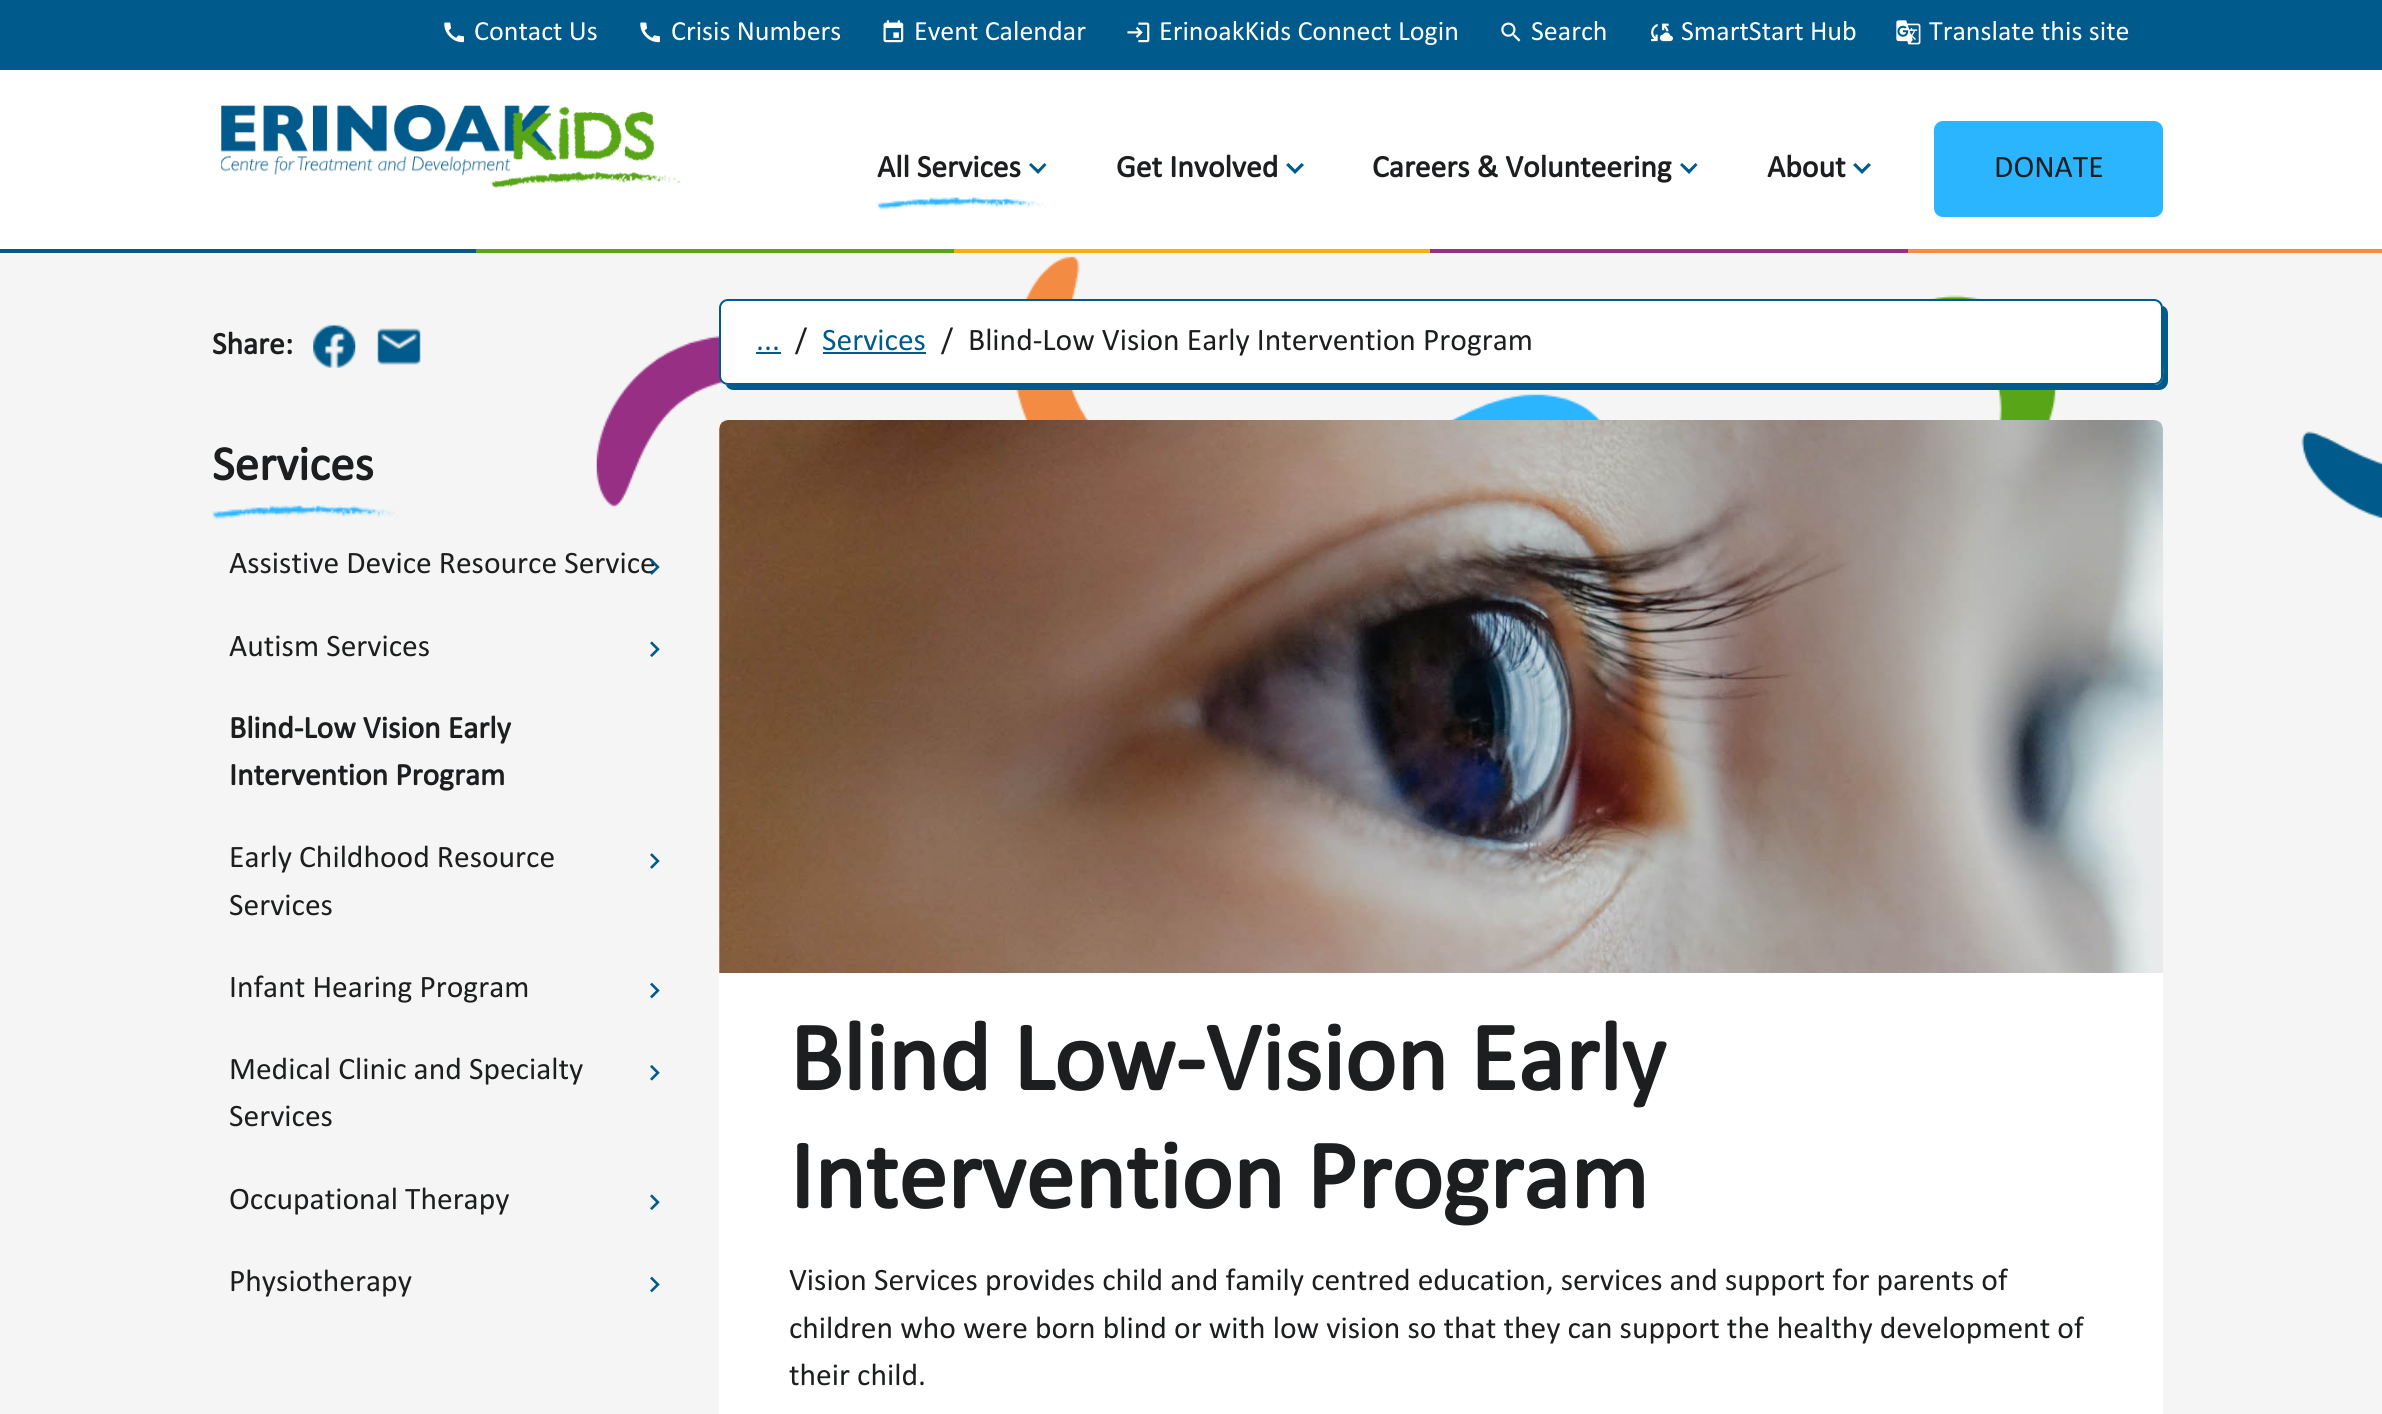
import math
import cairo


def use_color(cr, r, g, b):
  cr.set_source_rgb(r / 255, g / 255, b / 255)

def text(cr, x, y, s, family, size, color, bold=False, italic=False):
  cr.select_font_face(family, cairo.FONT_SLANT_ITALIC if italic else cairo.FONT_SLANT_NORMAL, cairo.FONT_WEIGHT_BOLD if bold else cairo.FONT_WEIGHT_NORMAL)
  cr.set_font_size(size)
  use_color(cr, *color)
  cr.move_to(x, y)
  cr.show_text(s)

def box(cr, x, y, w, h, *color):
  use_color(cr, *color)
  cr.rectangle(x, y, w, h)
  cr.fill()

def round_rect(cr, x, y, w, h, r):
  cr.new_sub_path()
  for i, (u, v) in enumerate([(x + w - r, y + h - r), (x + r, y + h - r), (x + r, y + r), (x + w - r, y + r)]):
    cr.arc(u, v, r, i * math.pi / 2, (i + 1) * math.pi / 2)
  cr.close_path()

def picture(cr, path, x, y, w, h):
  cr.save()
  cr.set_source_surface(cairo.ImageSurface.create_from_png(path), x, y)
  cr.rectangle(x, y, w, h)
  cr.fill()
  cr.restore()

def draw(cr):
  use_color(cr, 255, 255, 255)
  cr.paint()
  box(cr, 0, 0, 2382, 70, 0, 90, 139)
  picture(cr, "img_01.png", 444, 22, 20, 21)
  picture(cr, "img_01.png", 640, 22, 20, 21)
  picture(cr, "img_02.png", 883, 20, 21, 23)
  picture(cr, "img_03.png", 1127, 22, 23, 21)
  picture(cr, "img_04.png", 1501, 22, 20, 20)
  picture(cr, "img_05.png", 1651, 23, 22, 19)
  picture(cr, "img_06.png", 1896, 20, 25, 25)
  picture(cr, "img_07.png", 221, 105, 467, 83)
  cr.new_path()
  cr.move_to(1044.5, 163)
  cr.line_to(1046.5, 165)
  cr.line_to(1038, 174)
  cr.line_to(1029, 165)
  cr.line_to(1031, 163)
  cr.line_to(1038, 169.5)
  cr.close_path()
  cr.fill()
  picture(cr, "img_08.png", 877, 197, 170, 13)
  cr.new_path()
  cr.move_to(1301.5, 163)
  cr.line_to(1304, 165)
  cr.line_to(1295, 174)
  cr.line_to(1286, 165)
  cr.line_to(1288.5, 163)
  cr.line_to(1295, 169.5)
  cr.close_path()
  cr.fill()
  cr.new_path()
  cr.move_to(1695.5, 163)
  cr.line_to(1697.5, 165)
  cr.line_to(1689, 174)
  cr.line_to(1680, 165)
  cr.line_to(1682, 163)
  cr.line_to(1689, 169.5)
  cr.close_path()
  cr.fill()
  cr.new_path()
  cr.move_to(1868.5, 163)
  cr.line_to(1871, 165)
  cr.line_to(1862, 174)
  cr.line_to(1853, 165)
  cr.line_to(1855.5, 163)
  cr.line_to(1862, 169.5)
  cr.close_path()
  cr.fill()
  use_color(cr, 43, 180, 255)
  round_rect(cr, 1934, 121, 229, 96, 9)
  cr.fill()
  box(cr, 0, 249, 476, 4, 0, 90, 139)
  box(cr, 476, 249, 478, 4, 88, 166, 24)
  box(cr, 954, 249, 476, 4, 252, 175, 12)
  box(cr, 1430, 249, 478, 4, 151, 47, 132)
  box(cr, 1908, 249, 474, 4, 244, 139, 66)
  box(cr, 0, 253, 2382, 1161, 244, 245, 244)
  picture(cr, "img_09.png", 596, 256, 1786, 264)
  picture(cr, "img_10.png", 313, 324, 43, 44)
  picture(cr, "img_11.png", 377, 328, 44, 37)
  picture(cr, "img_12.png", 211, 505, 187, 15)
  picture(cr, "img_14.png", 650, 641, 10, 16)
  picture(cr, "img_15.png", 650, 853, 10, 16)
  picture(cr, "img_16.png", 650, 982, 10, 17)
  picture(cr, "img_17.png", 650, 1065, 10, 16)
  picture(cr, "img_14.png", 650, 1194, 10, 16)
  picture(cr, "img_16.png", 650, 1276, 10, 17)
  use_color(cr, 0, 90, 139)
  cr.new_path()
  cr.move_to(726, 385)
  cr.curve_to(727, 388, 730, 390, 734, 390)
  cr.line_to(2159, 390)
  cr.curve_to(2164, 390, 2168, 386, 2168, 381)
  cr.line_to(2168, 314)
  cr.curve_to(2168, 310, 2166, 307, 2163, 306)
  cr.line_to(2163, 365)
  cr.curve_to(2163, 372, 2165, 385, 2154, 385)
  cr.close_path()
  cr.fill()
  use_color(cr, 255, 255, 255)
  round_rect(cr, 720, 300, 1442, 84, 8)
  cr.fill_preserve()
  use_color(cr, 0, 90, 139)
  cr.stroke()
  box(cr, 756, 352, 25, 2, 0, 90, 139)
  box(cr, 823, 352, 103, 2, 0, 90, 139)
  use_color(cr, 255, 255, 255)
  round_rect(cr, 719, 420, 1444, 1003, 9)
  cr.fill()
  picture(cr, "img_18.png", 719, 420, 1444, 553)
  text(cr, 474, 40, "Contact Us", "Calibri", 28, (255, 255, 255))
  text(cr, 671, 40, "Crisis Numbers", "Calibri", 28, (255, 255, 255))
  text(cr, 914, 40, "Event Calendar", "Calibri", 28, (255, 255, 255))
  text(cr, 1159, 40, "ErinoakKids Connect Login", "Calibri", 28, (255, 255, 255))
  text(cr, 1531, 40, "Search", "Calibri", 28, (255, 255, 255))
  text(cr, 1681, 40, "SmartStart Hub", "Calibri", 28, (255, 255, 255))
  text(cr, 1929, 40, "Translate this site", "Calibri", 28, (255, 255, 255))
  text(cr, 877, 177, "All Services", "Calibri", 31.5, (28, 30, 31), bold=True)
  text(cr, 1116, 177, "Get Involved", "Calibri", 31.5, (28, 30, 31), bold=True)
  text(cr, 1372, 177, "Careers & Volunteering", "Calibri", 31.5, (28, 30, 31), bold=True)
  text(cr, 1767, 177, "About", "Calibri", 31.5, (28, 30, 31), bold=True)
  text(cr, 1994, 177, "DONATE", "Calibri", 31.5, (28, 30, 31))
  text(cr, 212, 354, "Share:", "Calibri", 31.5, (28, 30, 31), bold=True)
  text(cr, 212, 480, "Services", "Calibri", 49, (28, 30, 31), bold=True)
  text(cr, 229, 573, "Assistive Device Resource Service", "Calibri", 31.5, (28, 30, 31))
  picture(cr, "img_13.png", 650, 559, 10, 16)
  text(cr, 229, 656, "Autism Services", "Calibri", 31.5, (28, 30, 31))
  text(cr, 229, 738, "Blind-Low Vision Early", "Calibri", 31.5, (28, 30, 31), bold=True)
  text(cr, 229, 785, "Intervention Program", "Calibri", 31.5, (28, 30, 31), bold=True)
  text(cr, 229, 867, "Early Childhood Resource", "Calibri", 31.5, (28, 30, 31))
  text(cr, 229, 915, "Services", "Calibri", 31.5, (28, 30, 31))
  text(cr, 229, 997, "Infant Hearing Program", "Calibri", 31.5, (28, 30, 31))
  text(cr, 229, 1079, "Medical Clinic and Specialty", "Calibri", 31.5, (28, 30, 31))
  text(cr, 229, 1126, "Services", "Calibri", 31.5, (28, 30, 31))
  text(cr, 229, 1209, "Occupational Therapy", "Calibri", 31.5, (28, 30, 31))
  text(cr, 229, 1291, "Physiotherapy", "Calibri", 31.5, (28, 30, 31))
  text(cr, 756, 350, "...", "Calibri", 31.5, (0, 90, 139))
  text(cr, 795, 350, "/", "Calibri", 31.5, (28, 30, 31))
  text(cr, 822, 350, "Services", "Calibri", 31.5, (0, 90, 139))
  text(cr, 941, 350, "/", "Calibri", 31.5, (28, 30, 31))
  text(cr, 968, 350, "Blind-Low Vision Early Intervention Program", "Calibri", 31.5, (28, 30, 31))
  text(cr, 789, 1090, "Blind Low-Vision Early", "Calibri", 98, (28, 30, 31), bold=True)
  text(cr, 789, 1208, "Intervention Program", "Calibri", 98, (28, 30, 31), bold=True)
  text(cr, 789, 1290, "Vision Services provides child and family centred education, services and support for parents of", "Calibri", 31.5, (28, 30, 31))
  text(cr, 789, 1338, "children who were born blind or with low vision so that they can support the healthy development of", "Calibri", 31.5, (28, 30, 31))
  text(cr, 789, 1385, "their child.", "Calibri", 31.5, (28, 30, 31))


surface = cairo.ImageSurface(cairo.FORMAT_RGB24, 2382, 1414)
cr = cairo.Context(surface)
options = cairo.FontOptions()
options.set_hint_metrics(cairo.HINT_METRICS_OFF)
options.set_hint_style(cairo.HINT_STYLE_NONE)
cr.set_font_options(options)
cr.set_miter_limit(4)
draw(cr)
surface.write_to_png("out.png")
